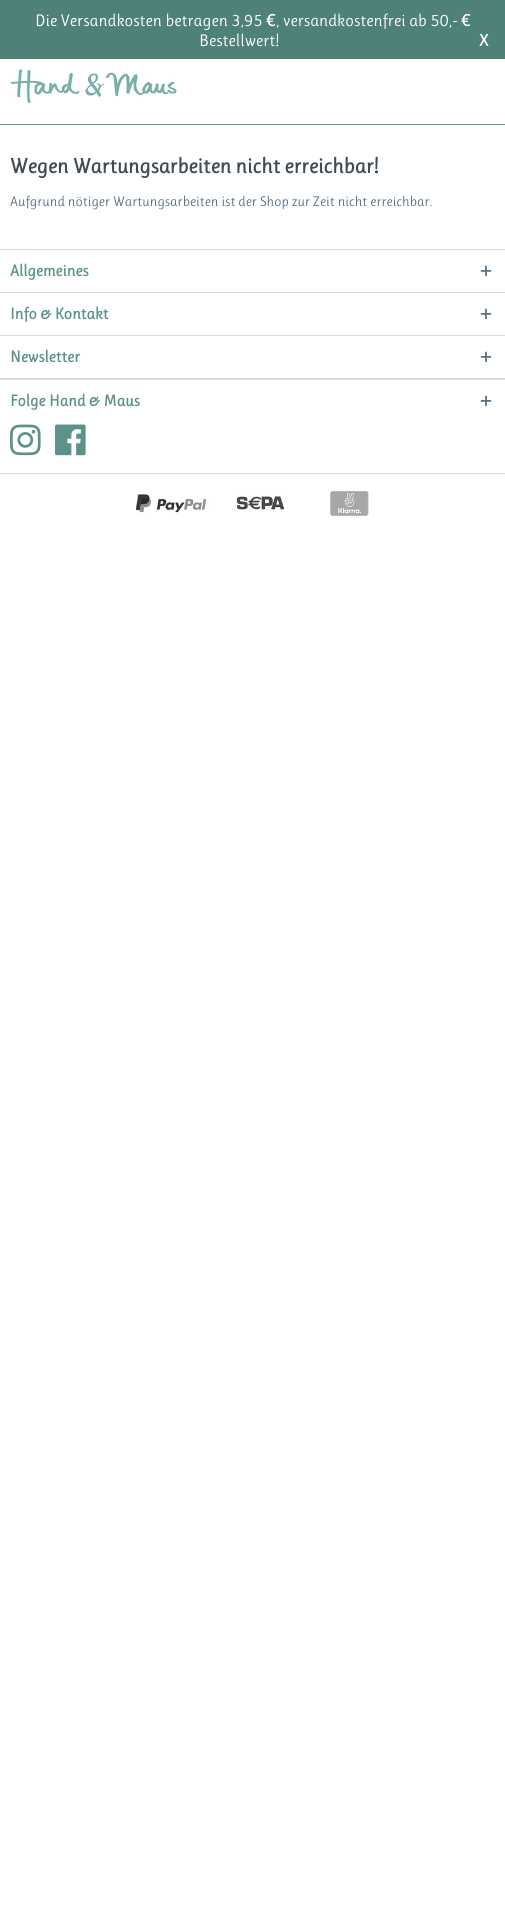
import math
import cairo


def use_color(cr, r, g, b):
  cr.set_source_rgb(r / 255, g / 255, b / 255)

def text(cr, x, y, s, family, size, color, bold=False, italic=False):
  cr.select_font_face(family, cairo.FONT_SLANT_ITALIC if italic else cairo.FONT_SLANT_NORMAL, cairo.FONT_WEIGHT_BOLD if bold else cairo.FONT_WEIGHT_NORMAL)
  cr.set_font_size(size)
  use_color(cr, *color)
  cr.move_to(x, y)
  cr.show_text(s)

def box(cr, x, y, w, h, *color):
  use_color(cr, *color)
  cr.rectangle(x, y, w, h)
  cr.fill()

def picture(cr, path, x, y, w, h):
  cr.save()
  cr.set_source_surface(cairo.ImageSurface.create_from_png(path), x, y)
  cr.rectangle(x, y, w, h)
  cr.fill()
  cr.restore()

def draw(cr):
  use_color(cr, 255, 255, 255)
  cr.paint()
  box(cr, 0, 0, 505, 59, 78, 129, 120)
  box(cr, 0, 124, 505, 1, 93, 146, 139)
  picture(cr, "img_01.png", 10, 69, 167, 35)
  box(cr, 0, 249, 505, 1, 218, 218, 229)
  picture(cr, "img_02.png", 480, 265, 12, 12)
  box(cr, 0, 292, 505, 1, 218, 218, 229)
  picture(cr, "img_02.png", 480, 308, 12, 12)
  box(cr, 0, 335, 505, 1, 218, 218, 229)
  box(cr, 0, 378, 505, 2, 218, 218, 229)
  picture(cr, "img_02.png", 480, 351, 12, 12)
  picture(cr, "img_02.png", 480, 395, 12, 12)
  picture(cr, "img_03.png", 10, 424, 31, 32)
  picture(cr, "img_04.png", 55, 424, 31, 32)
  box(cr, 0, 473, 505, 1, 218, 218, 229)
  picture(cr, "img_05.png", 136, 491, 233, 25)
  text(cr, 35, 26, "Die Versandkosten betragen 3,95", "Ruluko", 16.75, (255, 255, 255))
  text(cr, 266, 26, "€", "Open Sans Medium", 16.75, (255, 255, 255))
  text(cr, 276, 26, ", versandkostenfrei ab 50,-", "Ruluko", 16.75, (255, 255, 255))
  text(cr, 461, 26, "€", "Open Sans Medium", 16.75, (255, 255, 255))
  text(cr, 199, 46, "Bestellwert!", "Ruluko", 16.75, (255, 255, 255))
  text(cr, 479, 46, "X", "Ruluko", 16.75, (255, 255, 255), bold=True)
  text(cr, 10, 173, "Wegen Wartungsarbeiten nicht erreichbar!", "Ruluko", 21, (63, 76, 88), bold=True)
  text(cr, 10, 206, "Aufgrund nötiger Wartungsarbeiten ist der Shop zur Zeit nicht erreichbar.", "Ruluko", 14, (95, 114, 133))
  text(cr, 10, 276, "Allgemeines", "Ruluko", 16, (93, 146, 139), bold=True)
  text(cr, 10, 319, "Info & Kontakt", "Ruluko", 16, (93, 146, 139), bold=True)
  text(cr, 10, 362, "Newsletter", "Ruluko", 16, (93, 146, 139), bold=True)
  text(cr, 10, 406, "Folge Hand & Maus", "Ruluko", 16, (93, 146, 139), bold=True)


surface = cairo.ImageSurface(cairo.FORMAT_RGB24, 505, 1907)
cr = cairo.Context(surface)
options = cairo.FontOptions()
options.set_hint_metrics(cairo.HINT_METRICS_OFF)
options.set_hint_style(cairo.HINT_STYLE_NONE)
cr.set_font_options(options)
cr.set_miter_limit(4)
draw(cr)
surface.write_to_png("out.png")
